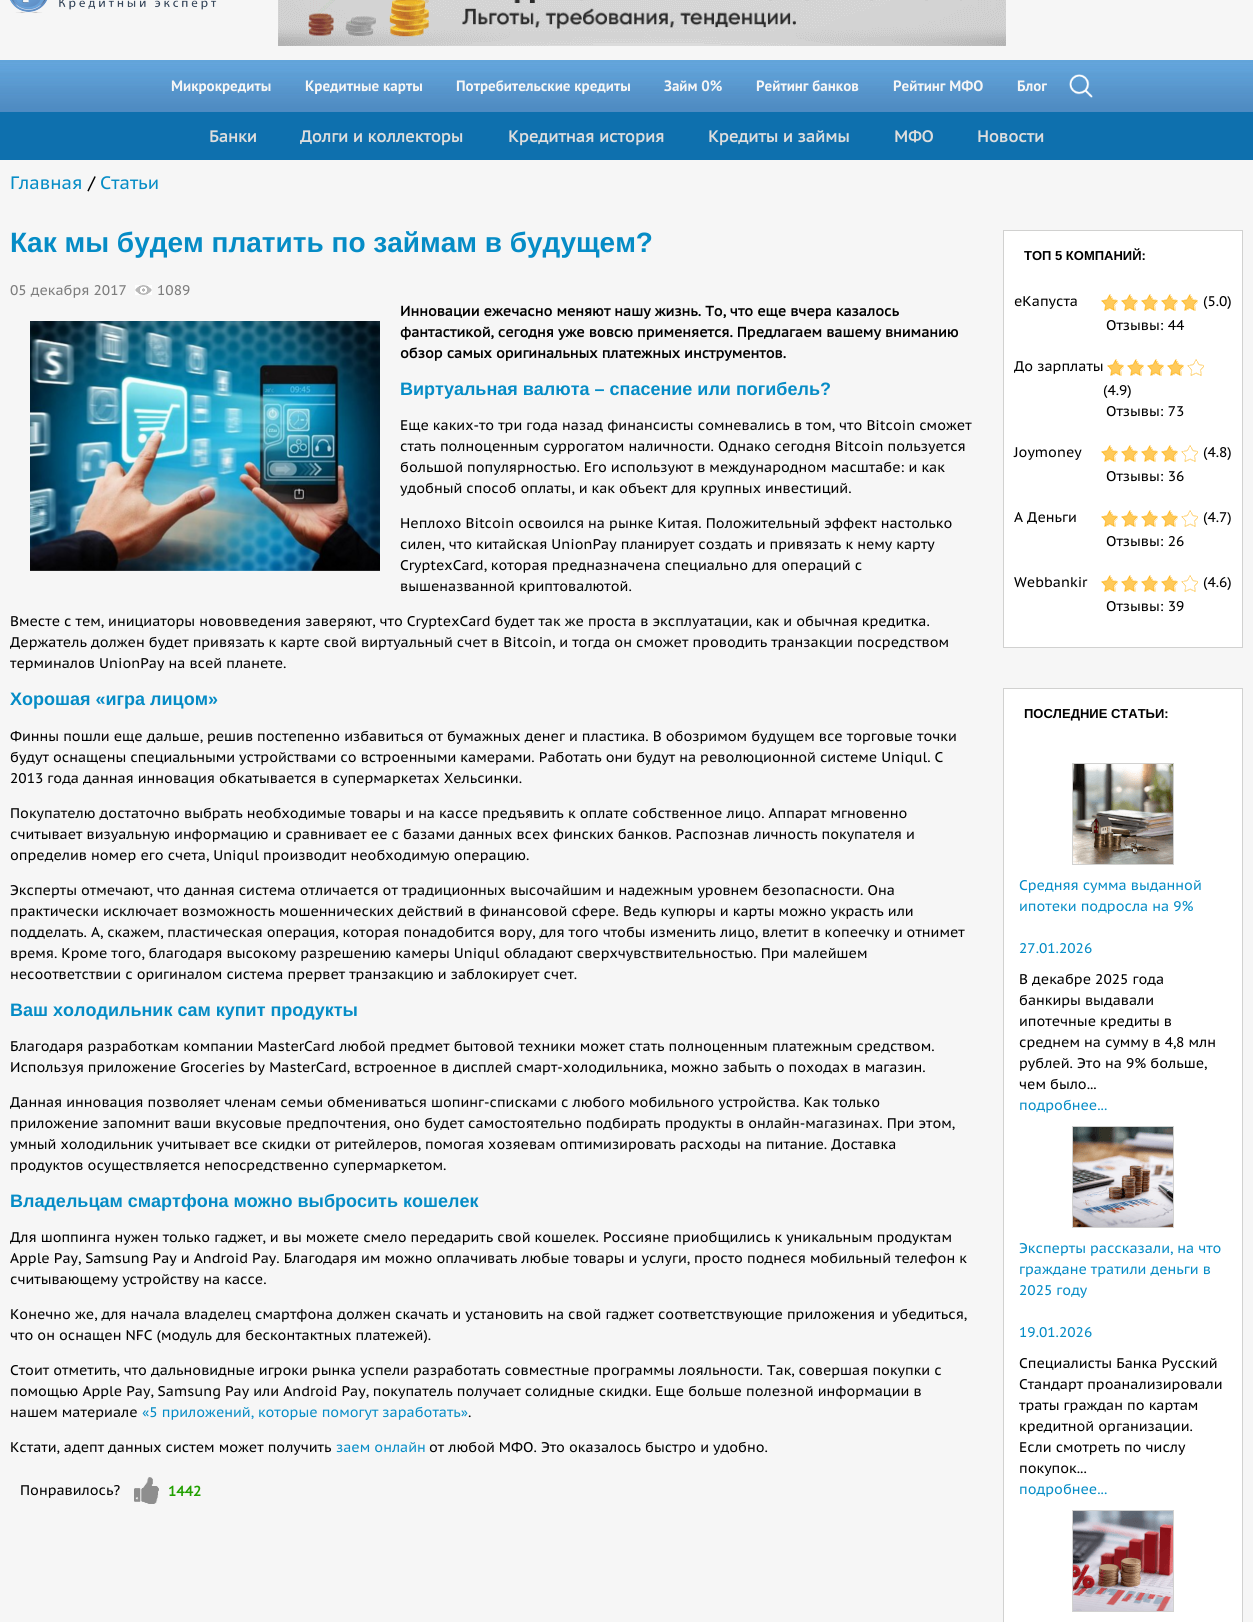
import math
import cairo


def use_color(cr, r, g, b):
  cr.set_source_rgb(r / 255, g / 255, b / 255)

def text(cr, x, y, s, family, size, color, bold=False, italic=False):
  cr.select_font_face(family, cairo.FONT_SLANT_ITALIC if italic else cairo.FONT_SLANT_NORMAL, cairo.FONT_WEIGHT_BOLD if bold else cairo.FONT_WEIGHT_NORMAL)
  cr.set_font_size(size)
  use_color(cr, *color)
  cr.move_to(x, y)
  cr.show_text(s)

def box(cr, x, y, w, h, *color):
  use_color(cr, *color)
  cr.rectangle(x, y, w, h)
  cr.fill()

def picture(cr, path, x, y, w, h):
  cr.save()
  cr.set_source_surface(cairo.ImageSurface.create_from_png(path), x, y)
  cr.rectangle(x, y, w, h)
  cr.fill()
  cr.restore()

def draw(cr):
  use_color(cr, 246, 246, 246)
  cr.paint()
  picture(cr, "img_01.png", 10, 0, 207, 13)
  picture(cr, "img_02.png", 278, 0, 728, 46)
  picture(cr, "img_03.png", 0, 60, 1253, 52)
  picture(cr, "img_04.png", 1069, 74, 24, 24)
  box(cr, 0, 112, 1253, 48, 14, 112, 174)
  picture(cr, "img_05.png", 135, 285, 17, 10)
  picture(cr, "img_06.png", 30, 321, 350, 250)
  picture(cr, "img_07.png", 134, 1477, 25, 27)
  use_color(cr, 255, 255, 255)
  cr.rectangle(1003.5, 230.5, 239, 417)
  cr.fill_preserve()
  use_color(cr, 209, 209, 208)
  cr.set_line_width(1)
  cr.stroke()
  picture(cr, "img_08.png", 1103, 294, 15, 17)
  picture(cr, "img_09.png", 1101, 294, 17, 17)
  picture(cr, "img_08.png", 1123, 294, 15, 17)
  picture(cr, "img_09.png", 1121, 294, 17, 17)
  picture(cr, "img_08.png", 1143, 294, 15, 17)
  picture(cr, "img_09.png", 1141, 294, 17, 17)
  picture(cr, "img_08.png", 1163, 294, 15, 17)
  picture(cr, "img_09.png", 1161, 294, 17, 17)
  picture(cr, "img_08.png", 1183, 294, 15, 17)
  picture(cr, "img_09.png", 1181, 294, 17, 17)
  picture(cr, "img_08.png", 1109, 359, 15, 17)
  picture(cr, "img_09.png", 1107, 359, 17, 17)
  picture(cr, "img_08.png", 1129, 359, 15, 17)
  picture(cr, "img_09.png", 1127, 359, 17, 17)
  picture(cr, "img_08.png", 1149, 359, 15, 17)
  picture(cr, "img_09.png", 1147, 359, 17, 17)
  picture(cr, "img_08.png", 1169, 359, 15, 17)
  picture(cr, "img_09.png", 1167, 359, 17, 17)
  picture(cr, "img_10.png", 1187, 359, 17, 17)
  picture(cr, "img_11.png", 1187, 362, 16, 14)
  picture(cr, "img_08.png", 1103, 445, 15, 17)
  picture(cr, "img_09.png", 1101, 445, 17, 17)
  picture(cr, "img_08.png", 1123, 445, 15, 17)
  picture(cr, "img_09.png", 1121, 445, 17, 17)
  picture(cr, "img_08.png", 1143, 445, 15, 17)
  picture(cr, "img_09.png", 1141, 445, 17, 17)
  picture(cr, "img_08.png", 1163, 445, 15, 17)
  picture(cr, "img_09.png", 1161, 445, 17, 17)
  picture(cr, "img_10.png", 1181, 445, 17, 17)
  picture(cr, "img_11.png", 1181, 448, 16, 14)
  picture(cr, "img_08.png", 1103, 510, 15, 17)
  picture(cr, "img_09.png", 1101, 510, 17, 17)
  picture(cr, "img_08.png", 1123, 510, 15, 17)
  picture(cr, "img_09.png", 1121, 510, 17, 17)
  picture(cr, "img_08.png", 1143, 510, 15, 17)
  picture(cr, "img_09.png", 1141, 510, 17, 17)
  picture(cr, "img_08.png", 1163, 510, 15, 17)
  picture(cr, "img_09.png", 1161, 510, 17, 17)
  picture(cr, "img_10.png", 1181, 510, 17, 17)
  picture(cr, "img_11.png", 1181, 513, 16, 14)
  picture(cr, "img_08.png", 1103, 575, 15, 17)
  picture(cr, "img_09.png", 1101, 575, 17, 17)
  picture(cr, "img_08.png", 1123, 575, 15, 17)
  picture(cr, "img_09.png", 1121, 575, 17, 17)
  picture(cr, "img_08.png", 1143, 575, 15, 17)
  picture(cr, "img_09.png", 1141, 575, 17, 17)
  picture(cr, "img_08.png", 1163, 575, 15, 17)
  picture(cr, "img_09.png", 1161, 575, 17, 17)
  picture(cr, "img_10.png", 1181, 575, 17, 17)
  picture(cr, "img_11.png", 1181, 578, 16, 14)
  use_color(cr, 255, 255, 255)
  cr.rectangle(1003.5, 688.5, 239, 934)
  cr.fill_preserve()
  use_color(cr, 209, 209, 208)
  cr.stroke()
  cr.rectangle(1072.5, 763.5, 101, 101)
  cr.stroke()
  picture(cr, "img_12.png", 1073, 764, 100, 100)
  cr.rectangle(1072.5, 1126.5, 101, 101)
  cr.stroke()
  picture(cr, "img_13.png", 1073, 1127, 100, 100)
  cr.rectangle(1072.5, 1510.5, 101, 101)
  cr.stroke()
  picture(cr, "img_14.png", 1073, 1511, 100, 100)
  text(cr, 171, 91, "Микрокредиты", "PT Sans", 15, (246, 246, 246), bold=True)
  text(cr, 305, 91, "Кредитные карты", "PT Sans", 15, (246, 246, 246), bold=True)
  text(cr, 456, 91, "Потребительские кредиты", "PT Sans", 15, (246, 246, 246), bold=True)
  text(cr, 664, 91, "Займ 0%", "PT Sans", 15, (246, 246, 246), bold=True)
  text(cr, 756, 91, "Рейтинг банков", "PT Sans", 15, (246, 246, 246), bold=True)
  text(cr, 893, 91, "Рейтинг МФО", "PT Sans", 15, (246, 246, 246), bold=True)
  text(cr, 1017, 91, "Блог", "PT Sans", 15, (246, 246, 246), bold=True)
  text(cr, 209, 142, "Банки", "PT Sans Caption", 16, (221, 221, 221), bold=True)
  text(cr, 300, 142, "Долги и коллекторы", "PT Sans Caption", 16, (221, 221, 221), bold=True)
  text(cr, 508, 142, "Кредитная история", "PT Sans Caption", 16, (221, 221, 221), bold=True)
  text(cr, 708, 142, "Кредиты и займы", "PT Sans Caption", 16, (221, 221, 221), bold=True)
  text(cr, 894, 142, "МФО", "PT Sans Caption", 16, (221, 221, 221), bold=True)
  text(cr, 977, 142, "Новости", "PT Sans Caption", 16, (221, 221, 221), bold=True)
  text(cr, 10, 189, "Главная", "PT Sans Caption", 18, (5, 140, 198))
  text(cr, 88, 189, "/", "PT Sans Caption", 18, (0, 0, 0))
  text(cr, 100, 189, "Статьи", "PT Sans Caption", 18, (5, 140, 198))
  text(cr, 10, 252, "Как мы будем платить по займам в будущем?", "Liberation Sans", 28, (5, 140, 198), bold=True)
  text(cr, 10, 295, "05 декабря 2017", "PT Sans Caption", 14, (125, 125, 125))
  text(cr, 157, 295, "1089", "PT Sans Caption", 14, (125, 125, 125))
  text(cr, 400, 316, "Инновации ежечасно меняют нашу жизнь. То, что еще вчера казалось", "PT Sans Caption", 14, (0, 0, 0), bold=True)
  text(cr, 400, 337, "фантастикой, сегодня уже вовсю применяется. Предлагаем вашему вниманию", "PT Sans Caption", 14, (0, 0, 0), bold=True)
  text(cr, 400, 358, "обзор самых оригинальных платежных инструментов.", "PT Sans Caption", 14, (0, 0, 0), bold=True)
  text(cr, 400, 395, "Виртуальная валюта – спасение или погибель?", "Liberation Sans", 18, (5, 140, 198), bold=True)
  text(cr, 400, 430, "Еще каких-то три года назад финансисты сомневались в том, что Bitcoin сможет", "PT Sans Caption", 14, (0, 0, 0))
  text(cr, 400, 451, "стать полноценным суррогатом наличности. Однако сегодня Bitcoin пользуется", "PT Sans Caption", 14, (0, 0, 0))
  text(cr, 400, 472, "большой популярностью. Его используют в международном масштабе: и как", "PT Sans Caption", 14, (0, 0, 0))
  text(cr, 400, 493, "удобный способ оплаты, и как объект для крупных инвестиций.", "PT Sans Caption", 14, (0, 0, 0))
  text(cr, 400, 528, "Неплохо Bitcoin освоился на рынке Китая. Положительный эффект настолько", "PT Sans Caption", 14, (0, 0, 0))
  text(cr, 400, 549, "силен, что китайская UnionPay планирует создать и привязать к нему карту", "PT Sans Caption", 14, (0, 0, 0))
  text(cr, 400, 570, "CryptexCard, которая предназначена специально для операций с", "PT Sans Caption", 14, (0, 0, 0))
  text(cr, 400, 591, "вышеназванной криптовалютой.", "PT Sans Caption", 14, (0, 0, 0))
  text(cr, 10, 626, "Вместе с тем, инициаторы нововведения заверяют, что CryptexCard будет так же проста в эксплуатации, как и обычная кредитка.", "PT Sans Caption", 14, (0, 0, 0))
  text(cr, 10, 647, "Держатель должен будет привязать к карте свой виртуальный счет в Bitcoin, и тогда он сможет проводить транзакции посредством", "PT Sans Caption", 14, (0, 0, 0))
  text(cr, 10, 668, "терминалов UnionPay на всей планете.", "PT Sans Caption", 14, (0, 0, 0))
  text(cr, 10, 705, "Хорошая «игра лицом»", "Liberation Sans", 18, (5, 140, 198), bold=True)
  text(cr, 10, 741, "Финны пошли еще дальше, решив постепенно избавиться от бумажных денег и пластика. В обозримом будущем все торговые точки", "PT Sans Caption", 14, (0, 0, 0))
  text(cr, 10, 762, "будут оснащены специальными устройствами со встроенными камерами. Работать они будут на революционной системе Uniqul. С", "PT Sans Caption", 14, (0, 0, 0))
  text(cr, 10, 783, "2013 года данная инновация обкатывается в супермаркетах Хельсинки.", "PT Sans Caption", 14, (0, 0, 0))
  text(cr, 10, 818, "Покупателю достаточно выбрать необходимые товары и на кассе предъявить к оплате собственное лицо. Аппарат мгновенно", "PT Sans Caption", 14, (0, 0, 0))
  text(cr, 10, 839, "считывает визуальную информацию и сравнивает ее с базами данных всех финских банков. Распознав личность покупателя и", "PT Sans Caption", 14, (0, 0, 0))
  text(cr, 10, 860, "определив номер его счета, Uniqul производит необходимую операцию.", "PT Sans Caption", 14, (0, 0, 0))
  text(cr, 10, 895, "Эксперты отмечают, что данная система отличается от традиционных высочайшим и надежным уровнем безопасности. Она", "PT Sans Caption", 14, (0, 0, 0))
  text(cr, 10, 916, "практически исключает возможность мошеннических действий в финансовой сфере. Ведь купюры и карты можно украсть или", "PT Sans Caption", 14, (0, 0, 0))
  text(cr, 10, 937, "подделать. А, скажем, пластическая операция, которая понадобится вору, для того чтобы изменить лицо, влетит в копеечку и отнимет", "PT Sans Caption", 14, (0, 0, 0))
  text(cr, 10, 958, "время. Кроме того, благодаря высокому разрешению камеры Uniqul обладают сверхчувствительностью. При малейшем", "PT Sans Caption", 14, (0, 0, 0))
  text(cr, 10, 979, "несоответствии с оригиналом система прервет транзакцию и заблокирует счет.", "PT Sans Caption", 14, (0, 0, 0))
  text(cr, 10, 1016, "Ваш холодильник сам купит продукты", "Liberation Sans", 18, (5, 140, 198), bold=True)
  text(cr, 10, 1051, "Благодаря разработкам компании MasterCard любой предмет бытовой техники может стать полноценным платежным средством.", "PT Sans Caption", 14, (0, 0, 0))
  text(cr, 10, 1072, "Используя приложение Groceries by MasterCard, встроенное в дисплей смарт-холодильника, можно забыть о походах в магазин.", "PT Sans Caption", 14, (0, 0, 0))
  text(cr, 10, 1107, "Данная инновация позволяет членам семьи обмениваться шопинг-списками с любого мобильного устройства. Как только", "PT Sans Caption", 14, (0, 0, 0))
  text(cr, 10, 1128, "приложение запомнит ваши вкусовые предпочтения, оно будет самостоятельно подбирать продукты в онлайн-магазинах. При этом,", "PT Sans Caption", 14, (0, 0, 0))
  text(cr, 10, 1149, "умный холодильник учитывает все скидки от ритейлеров, помогая хозяевам оптимизировать расходы на питание. Доставка", "PT Sans Caption", 14, (0, 0, 0))
  text(cr, 10, 1170, "продуктов осуществляется непосредственно супермаркетом.", "PT Sans Caption", 14, (0, 0, 0))
  text(cr, 10, 1207, "Владельцам смартфона можно выбросить кошелек", "Liberation Sans", 18, (5, 140, 198), bold=True)
  text(cr, 10, 1242, "Для шоппинга нужен только гаджет, и вы можете смело передарить свой кошелек. Россияне приобщились к уникальным продуктам", "PT Sans Caption", 14, (0, 0, 0))
  text(cr, 10, 1263, "Apple Pay, Samsung Pay и Android Pay. Благодаря им можно оплачивать любые товары и услуги, просто поднеся мобильный телефон к", "PT Sans Caption", 14, (0, 0, 0))
  text(cr, 10, 1284, "считывающему устройству на кассе.", "PT Sans Caption", 14, (0, 0, 0))
  text(cr, 10, 1319, "Конечно же, для начала владелец смартфона должен скачать и установить на свой гаджет соответствующие приложения и убедиться,", "PT Sans Caption", 14, (0, 0, 0))
  text(cr, 10, 1340, "что он оснащен NFC (модуль для бесконтактных платежей).", "PT Sans Caption", 14, (0, 0, 0))
  text(cr, 10, 1375, "Стоит отметить, что дальновидные игроки рынка успели разработать совместные программы лояльности. Так, совершая покупки с", "PT Sans Caption", 14, (0, 0, 0))
  text(cr, 10, 1396, "помощью Apple Pay, Samsung Pay или Android Pay, покупатель получает солидные скидки. Еще больше полезной информации в", "PT Sans Caption", 14, (0, 0, 0))
  text(cr, 10, 1417, "нашем материале", "PT Sans Caption", 14, (0, 0, 0))
  text(cr, 142, 1417, "«5 приложений, которые помогут заработать»", "PT Sans Caption", 14, (5, 140, 198))
  text(cr, 468, 1417, ".", "PT Sans Caption", 14, (0, 0, 0))
  text(cr, 10, 1452, "Кстати, адепт данных систем может получить", "PT Sans Caption", 14, (0, 0, 0))
  text(cr, 336, 1452, "заем онлайн", "PT Sans Caption", 14, (5, 140, 198))
  text(cr, 429, 1452, "от любой МФО. Это оказалось быстро и удобно.", "PT Sans Caption", 14, (0, 0, 0))
  text(cr, 20, 1495, "Понравилось?", "PT Sans Caption", 14, (0, 0, 0))
  text(cr, 168, 1496, "1442", "PT Sans Caption", 14, (33, 160, 0), bold=True)
  text(cr, 1024, 260, "ТОП 5 КОМПАНИЙ:", "Liberation Sans", 13, (0, 0, 0), bold=True)
  text(cr, 1014, 306, "еКапуста", "PT Sans Caption", 14, (0, 0, 0))
  text(cr, 1203, 306, "(5.0)", "PT Sans Caption", 14, (0, 0, 0))
  text(cr, 1106, 330, "Отзывы: 44", "PT Sans Caption", 14, (0, 0, 0))
  text(cr, 1014, 371, "До зарплаты", "PT Sans Caption", 14, (0, 0, 0))
  text(cr, 1103, 395, "(4.9)", "PT Sans Caption", 14, (0, 0, 0))
  text(cr, 1106, 416, "Отзывы: 73", "PT Sans Caption", 14, (0, 0, 0))
  text(cr, 1014, 457, "Joymoney", "PT Sans Caption", 14, (0, 0, 0))
  text(cr, 1203, 457, "(4.8)", "PT Sans Caption", 14, (0, 0, 0))
  text(cr, 1106, 481, "Отзывы: 36", "PT Sans Caption", 14, (0, 0, 0))
  text(cr, 1014, 522, "А Деньги", "PT Sans Caption", 14, (0, 0, 0))
  text(cr, 1203, 522, "(4.7)", "PT Sans Caption", 14, (0, 0, 0))
  text(cr, 1106, 546, "Отзывы: 26", "PT Sans Caption", 14, (0, 0, 0))
  text(cr, 1014, 587, "Webbankir", "PT Sans Caption", 14, (0, 0, 0))
  text(cr, 1203, 587, "(4.6)", "PT Sans Caption", 14, (0, 0, 0))
  text(cr, 1106, 611, "Отзывы: 39", "PT Sans Caption", 14, (0, 0, 0))
  text(cr, 1024, 718, "ПОСЛЕДНИЕ СТАТЬИ:", "Liberation Sans", 13, (0, 0, 0), bold=True)
  text(cr, 1019, 890, "Средняя сумма выданной", "PT Sans Caption", 14, (5, 140, 198))
  text(cr, 1019, 911, "ипотеки подросла на 9%", "PT Sans Caption", 14, (5, 140, 198))
  text(cr, 1019, 953, "27.01.2026", "PT Sans Caption", 14, (5, 140, 198))
  text(cr, 1019, 984, "В декабре 2025 года", "PT Sans Caption", 14, (0, 0, 0))
  text(cr, 1019, 1005, "банкиры выдавали", "PT Sans Caption", 14, (0, 0, 0))
  text(cr, 1019, 1026, "ипотечные кредиты в", "PT Sans Caption", 14, (0, 0, 0))
  text(cr, 1019, 1047, "среднем на сумму в 4,8 млн", "PT Sans Caption", 14, (0, 0, 0))
  text(cr, 1019, 1068, "рублей. Это на 9% больше,", "PT Sans Caption", 14, (0, 0, 0))
  text(cr, 1019, 1089, "чем было...", "PT Sans Caption", 14, (0, 0, 0))
  text(cr, 1019, 1110, "подробнее...", "PT Sans Caption", 14, (5, 140, 198))
  text(cr, 1019, 1253, "Эксперты рассказали, на что", "PT Sans Caption", 14, (5, 140, 198))
  text(cr, 1019, 1274, "граждане тратили деньги в", "PT Sans Caption", 14, (5, 140, 198))
  text(cr, 1019, 1295, "2025 году", "PT Sans Caption", 14, (5, 140, 198))
  text(cr, 1019, 1337, "19.01.2026", "PT Sans Caption", 14, (5, 140, 198))
  text(cr, 1019, 1368, "Специалисты Банка Русский", "PT Sans Caption", 14, (0, 0, 0))
  text(cr, 1019, 1389, "Стандарт проанализировали", "PT Sans Caption", 14, (0, 0, 0))
  text(cr, 1019, 1410, "траты граждан по картам", "PT Sans Caption", 14, (0, 0, 0))
  text(cr, 1019, 1431, "кредитной организации.", "PT Sans Caption", 14, (0, 0, 0))
  text(cr, 1019, 1452, "Если смотреть по числу", "PT Sans Caption", 14, (0, 0, 0))
  text(cr, 1019, 1473, "покупок...", "PT Sans Caption", 14, (0, 0, 0))
  text(cr, 1019, 1494, "подробнее...", "PT Sans Caption", 14, (5, 140, 198))


surface = cairo.ImageSurface(cairo.FORMAT_RGB24, 1253, 1622)
cr = cairo.Context(surface)
options = cairo.FontOptions()
options.set_hint_metrics(cairo.HINT_METRICS_OFF)
options.set_hint_style(cairo.HINT_STYLE_NONE)
cr.set_font_options(options)
cr.set_miter_limit(4)
draw(cr)
surface.write_to_png("out.png")
